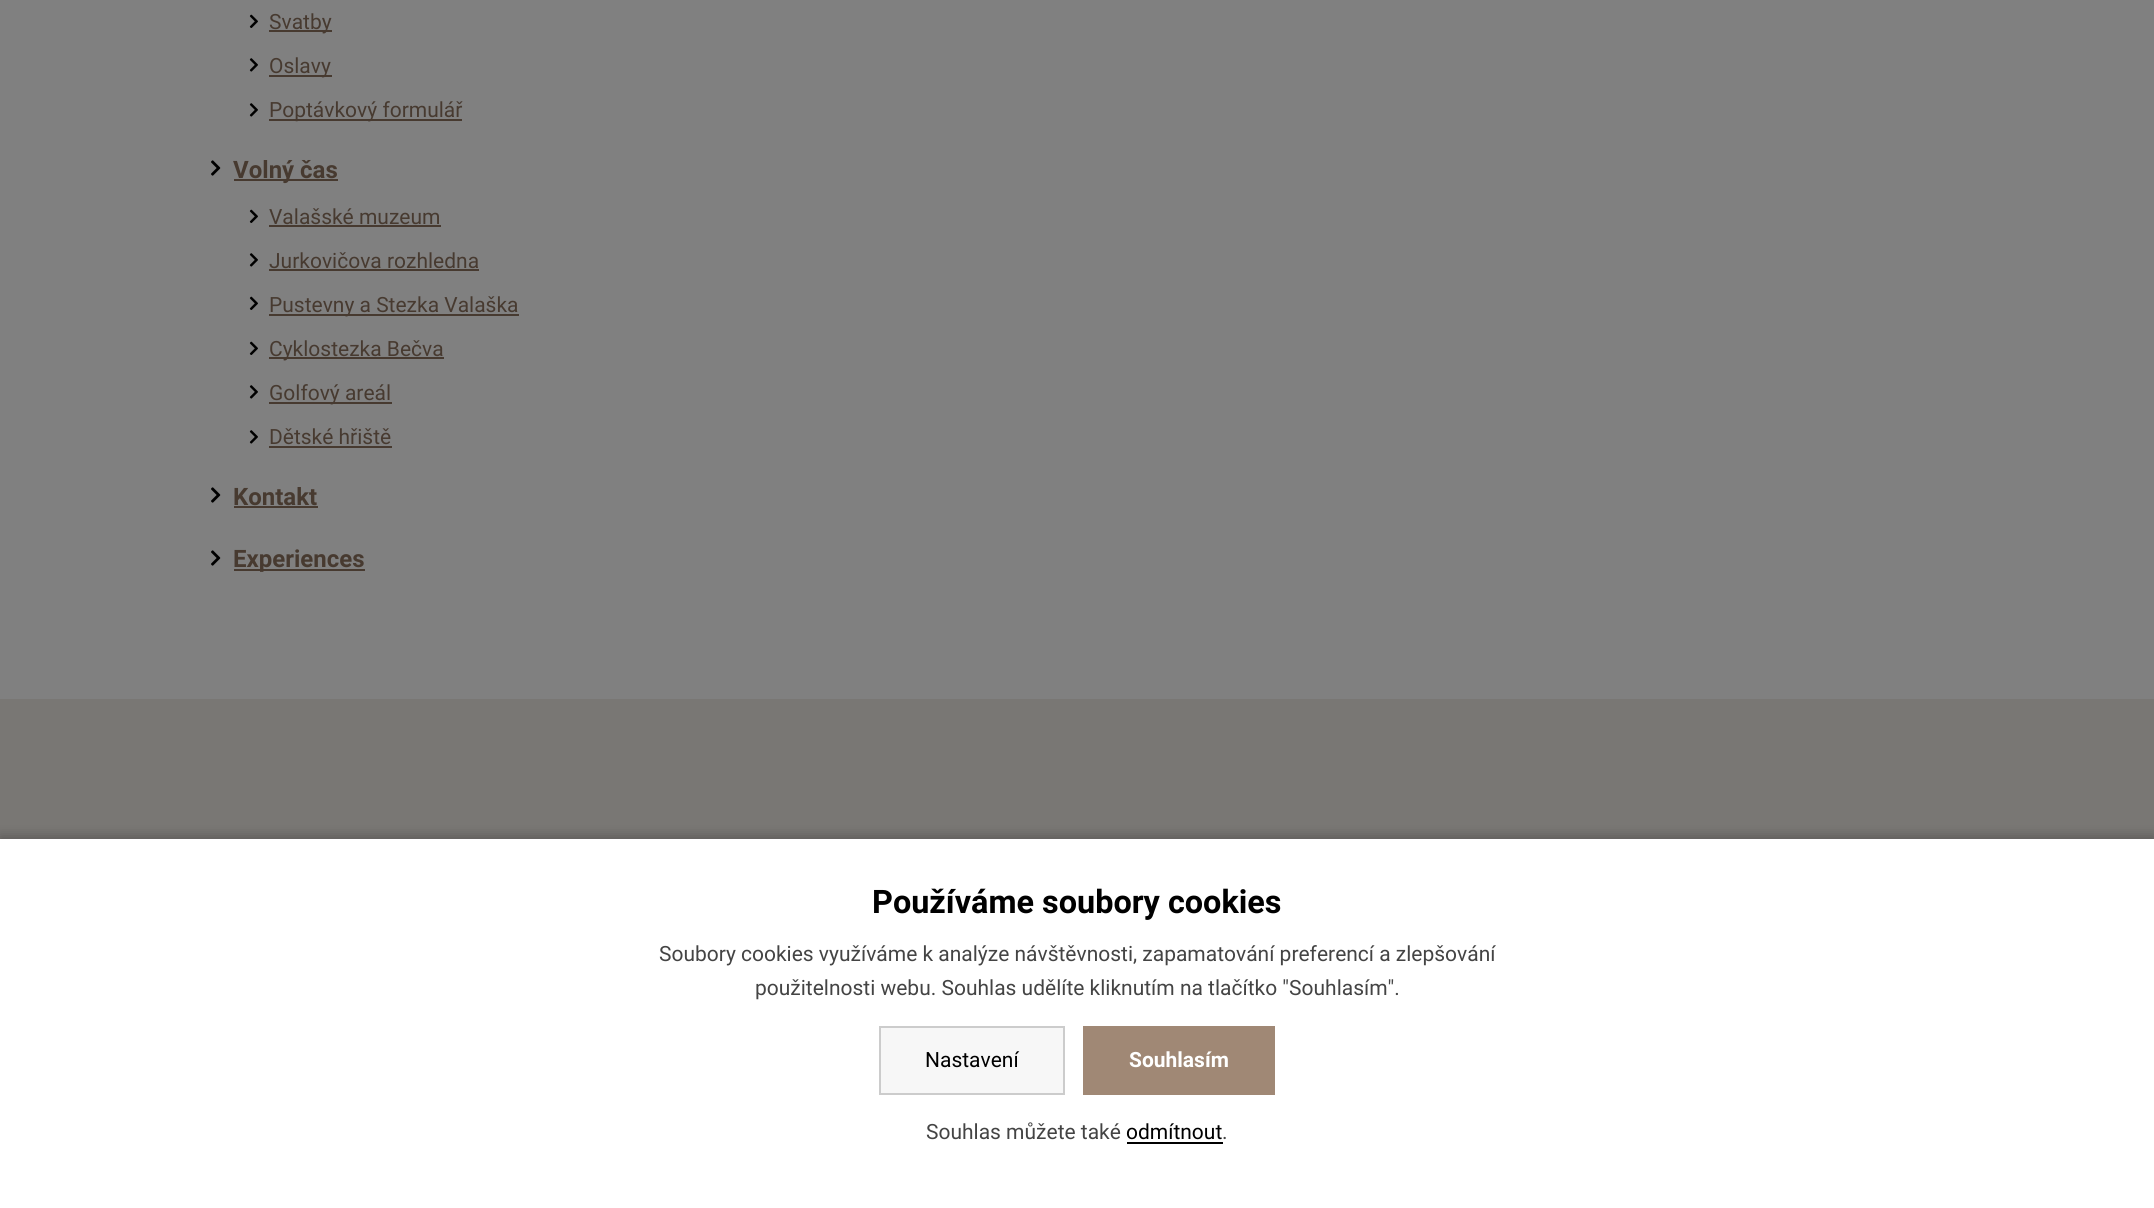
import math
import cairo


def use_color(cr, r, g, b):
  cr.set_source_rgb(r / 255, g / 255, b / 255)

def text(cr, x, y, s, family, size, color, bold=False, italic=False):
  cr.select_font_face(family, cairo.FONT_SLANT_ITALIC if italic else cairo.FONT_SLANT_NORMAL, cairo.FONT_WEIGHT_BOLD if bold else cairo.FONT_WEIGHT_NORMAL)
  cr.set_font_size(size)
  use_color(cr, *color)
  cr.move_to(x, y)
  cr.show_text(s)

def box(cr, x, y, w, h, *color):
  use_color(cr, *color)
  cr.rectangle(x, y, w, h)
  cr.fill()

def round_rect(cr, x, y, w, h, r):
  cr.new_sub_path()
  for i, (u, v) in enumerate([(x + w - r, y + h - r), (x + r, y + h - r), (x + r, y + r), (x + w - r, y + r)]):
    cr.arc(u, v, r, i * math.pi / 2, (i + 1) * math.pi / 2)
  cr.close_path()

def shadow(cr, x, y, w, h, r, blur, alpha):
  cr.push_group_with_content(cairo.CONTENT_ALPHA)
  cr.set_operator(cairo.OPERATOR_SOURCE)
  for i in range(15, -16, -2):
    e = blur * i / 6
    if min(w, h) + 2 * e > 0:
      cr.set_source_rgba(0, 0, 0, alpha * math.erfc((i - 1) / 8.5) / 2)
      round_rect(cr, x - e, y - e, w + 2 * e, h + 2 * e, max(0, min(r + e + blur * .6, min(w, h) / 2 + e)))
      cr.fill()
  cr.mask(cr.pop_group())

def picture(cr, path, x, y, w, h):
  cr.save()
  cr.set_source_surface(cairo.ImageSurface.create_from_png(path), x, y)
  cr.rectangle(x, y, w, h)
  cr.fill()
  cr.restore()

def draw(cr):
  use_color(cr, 128, 128, 128)
  cr.paint()
  picture(cr, "img_01.png", 249, 14, 9, 14)
  box(cr, 269, 30, 63, 2, 71, 58, 48)
  picture(cr, "img_02.png", 249, 58, 9, 14)
  box(cr, 269, 75, 63, 2, 71, 58, 48)
  picture(cr, "img_02.png", 249, 103, 9, 14)
  box(cr, 269, 119, 193, 2, 71, 58, 48)
  picture(cr, "img_03.png", 211, 160, 10, 16)
  box(cr, 234, 179, 104, 2, 71, 58, 48)
  picture(cr, "img_01.png", 249, 209, 9, 14)
  box(cr, 269, 225, 172, 2, 71, 58, 48)
  picture(cr, "img_02.png", 249, 253, 9, 14)
  box(cr, 269, 269, 210, 2, 71, 58, 48)
  picture(cr, "img_01.png", 249, 296, 9, 14)
  box(cr, 269, 314, 250, 2, 71, 58, 48)
  picture(cr, "img_01.png", 249, 341, 9, 14)
  box(cr, 269, 357, 175, 2, 71, 58, 48)
  picture(cr, "img_02.png", 249, 385, 9, 14)
  box(cr, 269, 402, 123, 2, 71, 58, 48)
  picture(cr, "img_02.png", 249, 430, 9, 14)
  box(cr, 269, 446, 123, 2, 71, 58, 48)
  picture(cr, "img_03.png", 211, 487, 10, 16)
  box(cr, 234, 506, 84, 2, 71, 58, 48)
  picture(cr, "img_03.png", 211, 550, 10, 16)
  box(cr, 234, 569, 131, 2, 71, 58, 48)
  box(cr, 0, 699, 2154, 140, 121, 119, 116)
  use_color(cr, 0, 0, 0)
  shadow(cr, 0, 836, 2154, 370, 0, 6, 0.25)
  box(cr, 0, 839, 2154, 369, 255, 255, 255)
  use_color(cr, 247, 247, 247)
  cr.rectangle(880, 1027, 184, 67)
  cr.fill_preserve()
  use_color(cr, 204, 204, 204)
  cr.stroke()
  box(cr, 1083, 1026, 192, 69, 160, 136, 117)
  box(cr, 1127, 1142, 96, 2, 0, 0, 0)
  text(cr, 269, 29, "Svatby", "Roboto", 21, (71, 58, 48))
  text(cr, 269, 73, "Oslavy", "Roboto", 21, (71, 58, 48))
  text(cr, 269, 117, "Poptávkový formulář", "Roboto", 21, (71, 58, 48))
  text(cr, 233, 178, "Volný čas", "Roboto", 24, (71, 58, 48), bold=True)
  text(cr, 269, 224, "Valašské muzeum", "Roboto", 21, (71, 58, 48))
  text(cr, 269, 268, "Jurkovičova rozhledna", "Roboto", 21, (71, 58, 48))
  text(cr, 269, 312, "Pustevny a Stezka Valaška", "Roboto", 21, (71, 58, 48))
  text(cr, 269, 356, "Cyklostezka Bečva", "Roboto", 21, (71, 58, 48))
  text(cr, 269, 400, "Golfový areál", "Roboto", 21, (71, 58, 48))
  text(cr, 269, 444, "Dětské hřiště", "Roboto", 21, (71, 58, 48))
  text(cr, 233, 505, "Kontakt", "Roboto", 24, (71, 58, 48), bold=True)
  text(cr, 233, 567, "Experiences", "Roboto", 24, (71, 58, 48), bold=True)
  text(cr, 872, 913, "Používáme soubory cookies", "Roboto", 32.4, (0, 0, 0), bold=True)
  text(cr, 659, 961, "Soubory cookies využíváme k analýze návštěvnosti, zapamatování preferencí a zlepšování", "Roboto", 21, (68, 68, 68))
  text(cr, 755, 995, "použitelnosti webu. Souhlas udělíte kliknutím na tlačítko \"Souhlasím\".", "Roboto", 21, (68, 68, 68))
  text(cr, 925, 1067, "Nastavení", "Roboto", 21, (0, 0, 0))
  text(cr, 1129, 1067, "Souhlasím", "Roboto", 21, (255, 255, 255), bold=True)
  text(cr, 926, 1139, "Souhlas můžete také", "Roboto", 21, (68, 68, 68))
  text(cr, 1126, 1139, "odmítnout", "Roboto", 21, (0, 0, 0))
  text(cr, 1222, 1139, ".", "Roboto", 21, (68, 68, 68))


surface = cairo.ImageSurface(cairo.FORMAT_RGB24, 2154, 1208)
cr = cairo.Context(surface)
options = cairo.FontOptions()
options.set_hint_metrics(cairo.HINT_METRICS_OFF)
options.set_hint_style(cairo.HINT_STYLE_NONE)
cr.set_font_options(options)
cr.set_miter_limit(4)
draw(cr)
surface.write_to_png("out.png")
